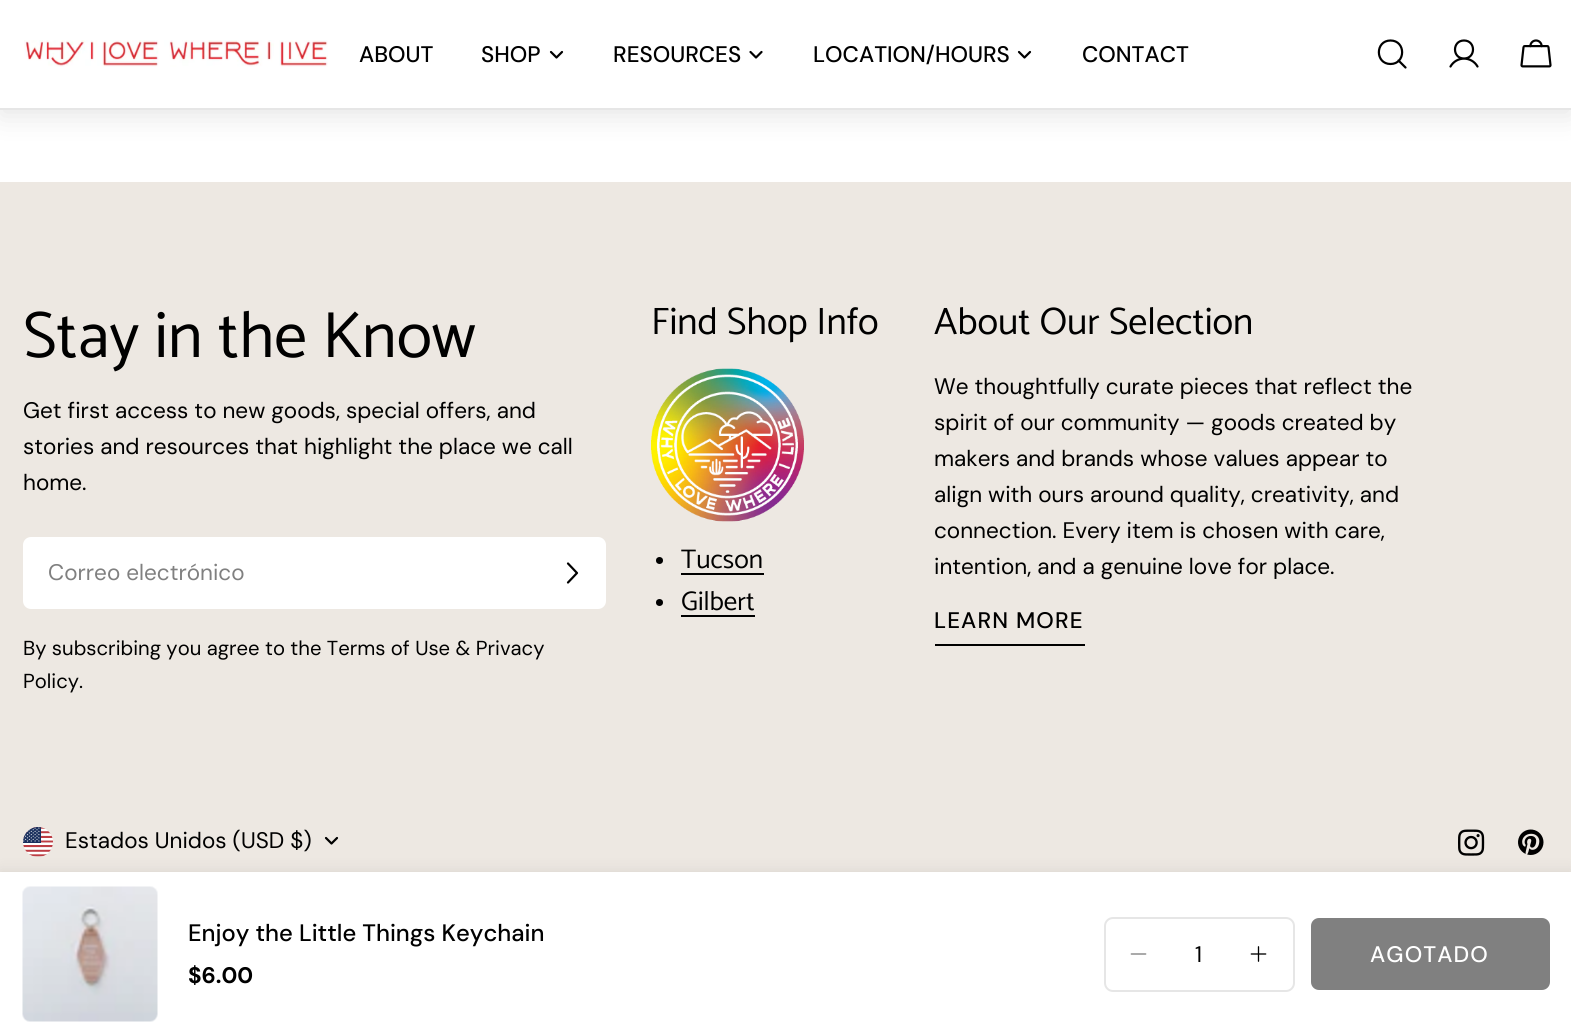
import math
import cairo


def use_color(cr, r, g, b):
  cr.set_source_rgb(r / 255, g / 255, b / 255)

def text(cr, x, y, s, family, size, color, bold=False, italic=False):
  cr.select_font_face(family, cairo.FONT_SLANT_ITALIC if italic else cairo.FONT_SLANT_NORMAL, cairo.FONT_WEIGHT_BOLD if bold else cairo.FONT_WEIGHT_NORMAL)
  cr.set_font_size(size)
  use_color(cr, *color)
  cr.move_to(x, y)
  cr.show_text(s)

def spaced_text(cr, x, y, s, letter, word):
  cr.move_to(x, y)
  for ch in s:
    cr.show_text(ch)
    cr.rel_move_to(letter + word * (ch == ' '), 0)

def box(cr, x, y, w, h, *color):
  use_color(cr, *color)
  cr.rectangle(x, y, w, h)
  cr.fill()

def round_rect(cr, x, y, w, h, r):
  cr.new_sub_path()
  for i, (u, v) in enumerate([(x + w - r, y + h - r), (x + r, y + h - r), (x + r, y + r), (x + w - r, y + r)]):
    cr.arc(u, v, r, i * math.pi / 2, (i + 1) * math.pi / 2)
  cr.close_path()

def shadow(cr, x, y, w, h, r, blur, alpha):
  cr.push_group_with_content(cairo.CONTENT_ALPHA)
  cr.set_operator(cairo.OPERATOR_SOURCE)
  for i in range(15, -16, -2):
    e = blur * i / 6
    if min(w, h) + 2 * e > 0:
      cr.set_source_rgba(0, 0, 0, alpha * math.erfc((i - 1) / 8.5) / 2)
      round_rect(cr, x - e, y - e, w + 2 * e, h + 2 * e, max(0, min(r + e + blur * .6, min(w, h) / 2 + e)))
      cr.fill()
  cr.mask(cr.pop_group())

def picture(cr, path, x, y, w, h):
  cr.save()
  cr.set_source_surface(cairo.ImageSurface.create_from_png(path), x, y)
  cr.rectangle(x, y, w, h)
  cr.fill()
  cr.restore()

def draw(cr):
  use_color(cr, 255, 255, 255)
  cr.paint()
  use_color(cr, 0, 0, 0)
  shadow(cr, 0, 6, 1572, 110, 0, 13.5, 0.1)
  box(cr, 0, 108, 1571, 2, 230, 230, 230)
  box(cr, 0, 0, 1571, 108, 255, 255, 255)
  picture(cr, "img_01.png", 24, 40, 304, 27)
  cr.new_path()
  cr.move_to(562, 52)
  cr.line_to(556.5, 57.5)
  cr.line_to(551, 52)
  use_color(cr, 0, 0, 0)
  cr.set_line_width(2.2)
  cr.set_line_cap(cairo.LINE_CAP_ROUND)
  cr.set_line_join(cairo.LINE_JOIN_ROUND)
  cr.stroke()
  cr.new_path()
  cr.move_to(761.5, 52)
  cr.line_to(756, 57.5)
  cr.line_to(750.5, 52)
  cr.stroke()
  cr.new_path()
  cr.move_to(1030, 52)
  cr.line_to(1024.5, 57.5)
  cr.line_to(1019, 52)
  cr.stroke()
  cr.new_path()
  cr.move_to(1390.5, 64)
  cr.curve_to(1406, 64, 1406, 40.5, 1390.5, 40.5)
  cr.curve_to(1375, 40.5, 1375, 64, 1390.5, 64)
  cr.close_path()
  cr.move_to(1398.5, 60.5)
  cr.line_to(1405.5, 67.5)
  cr.stroke()
  cr.new_path()
  cr.move_to(1464, 58.5)
  cr.curve_to(1476, 58.5, 1476, 40.5, 1464, 40.5)
  cr.curve_to(1452, 40.5, 1452, 58.5, 1464, 58.5)
  cr.close_path()
  cr.move_to(1450.5, 66.5)
  cr.curve_to(1456.5, 56, 1471.5, 56, 1477.5, 66.5)
  cr.stroke()
  picture(cr, "img_02.png", 1520, 39, 32, 29)
  box(cr, 0, 182, 1571, 690, 237, 232, 226)
  use_color(cr, 255, 255, 255)
  round_rect(cr, 24, 538, 581, 70, 7)
  cr.fill_preserve()
  cr.set_line_width(2)
  cr.set_line_cap(cairo.LINE_CAP_BUTT)
  cr.set_line_join(cairo.LINE_JOIN_MITER)
  cr.stroke()
  cr.new_path()
  cr.move_to(568, 563.5)
  cr.line_to(577, 573)
  cr.line_to(568, 582.5)
  use_color(cr, 0, 0, 0)
  cr.set_line_width(2.2)
  cr.set_line_cap(cairo.LINE_CAP_ROUND)
  cr.set_line_join(cairo.LINE_JOIN_ROUND)
  cr.stroke()
  picture(cr, "img_03.png", 651, 368, 153, 154)
  cr.arc(659.5, 560.5, 3.5, 0, 2 * math.pi)
  cr.fill()
  box(cr, 681, 573, 83, 2, 0, 0, 0)
  cr.arc(659.5, 602.5, 3.5, 0, 2 * math.pi)
  cr.fill()
  box(cr, 681, 615, 74, 2, 0, 0, 0)
  box(cr, 935, 644, 150, 2, 0, 0, 0)
  picture(cr, "img_04.png", 23, 827, 30, 30)
  cr.new_path()
  cr.move_to(337, 838)
  cr.line_to(331.5, 843.5)
  cr.line_to(326, 838)
  cr.stroke()
  picture(cr, "img_05.png", 1458, 829, 27, 27)
  picture(cr, "img_06.png", 1518, 829, 26, 26)
  use_color(cr, 0, 0, 0)
  shadow(cr, 0, 872, 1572, 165, 0, 7.5, 0.09)
  box(cr, 0, 872, 1571, 164, 255, 255, 255)
  picture(cr, "img_07.png", 22, 886, 136, 136)
  round_rect(cr, 1105, 918, 189, 73, 8)
  use_color(cr, 230, 230, 230)
  cr.set_line_width(2)
  cr.set_line_cap(cairo.LINE_CAP_BUTT)
  cr.set_line_join(cairo.LINE_JOIN_MITER)
  cr.stroke()
  picture(cr, "img_08.png", 1130, 953, 17, 2)
  picture(cr, "img_09.png", 1250, 946, 17, 16)
  use_color(cr, 128, 128, 128)
  round_rect(cr, 1311, 918, 239, 72, 8)
  cr.fill()
  text(cr, 359, 62, "ABOUT", "DM Sans Medium", 22.5, (0, 0, 0))
  text(cr, 481, 62, "SHOP", "DM Sans Medium", 22.5, (0, 0, 0))
  text(cr, 613, 62, "RESOURCES", "DM Sans Medium", 22.5, (0, 0, 0))
  text(cr, 813, 62, "LOCATION/HOURS", "DM Sans Medium", 22.5, (0, 0, 0))
  text(cr, 1082, 62, "CONTACT", "DM Sans Medium", 22.5, (0, 0, 0))
  text(cr, 23, 357, "Stay in the Know", "Catamaran", 65.5, (0, 0, 0))
  text(cr, 23, 418, "Get first access to new goods, special offers, and", "DM Sans", 22.5, (0, 0, 0))
  text(cr, 23, 454, "stories and resources that highlight the place we call", "DM Sans", 22.5, (0, 0, 0))
  text(cr, 23, 490, "home.", "DM Sans", 22.5, (0, 0, 0))
  text(cr, 48, 580, "Correo electrónico", "DM Sans", 22.5, (128, 128, 128))
  text(cr, 23, 655, "By subscribing you agree to the Terms of Use & Privacy", "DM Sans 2", 20.25, (0, 0, 0))
  text(cr, 23, 688, "Policy.", "DM Sans 2", 20.25, (0, 0, 0))
  text(cr, 651, 334, "Find Shop Info", "Catamaran", 38.25, (0, 0, 0))
  text(cr, 681, 568, "Tucson", "Catamaran", 27, (0, 0, 0))
  text(cr, 681, 610, "Gilbert", "Catamaran", 27, (0, 0, 0))
  text(cr, 934, 334, "About Our Selection", "Catamaran", 38.25, (0, 0, 0))
  text(cr, 934, 394, "We thoughtfully curate pieces that reflect the", "DM Sans", 22.5, (0, 0, 0))
  text(cr, 934, 430, "spirit of our community — goods created by", "DM Sans", 22.5, (0, 0, 0))
  text(cr, 934, 466, "makers and brands whose values appear to", "DM Sans", 22.5, (0, 0, 0))
  text(cr, 934, 502, "align with ours around quality, creativity, and", "DM Sans", 22.5, (0, 0, 0))
  text(cr, 934, 538, "connection. Every item is chosen with care,", "DM Sans", 22.5, (0, 0, 0))
  text(cr, 934, 574, "intention, and a genuine love for place.", "DM Sans", 22.5, (0, 0, 0))
  cr.select_font_face("DM Sans Medium")
  spaced_text(cr, 934, 628, "LEARN MORE", 1.1, 0)
  text(cr, 65, 848, "Estados Unidos (USD $)", "DM Sans", 22.5, (0, 0, 0))
  text(cr, 188, 941, "Enjoy the Little Things Keychain", "DM Sans 2 Medium", 23.8, (0, 0, 0))
  text(cr, 188, 983, "$6.00", "DM Sans", 22.5, (0, 0, 0), bold=True)
  text(cr, 1195, 962, "1", "DM Sans", 22.5, (0, 0, 0))
  cr.select_font_face("DM Sans Medium")
  use_color(cr, 255, 255, 255)
  spaced_text(cr, 1370, 962, "AGOTADO", 1.1, 0)


surface = cairo.ImageSurface(cairo.FORMAT_RGB24, 1571, 1036)
cr = cairo.Context(surface)
options = cairo.FontOptions()
options.set_hint_metrics(cairo.HINT_METRICS_OFF)
options.set_hint_style(cairo.HINT_STYLE_NONE)
cr.set_font_options(options)
cr.set_miter_limit(4)
draw(cr)
surface.write_to_png("out.png")
